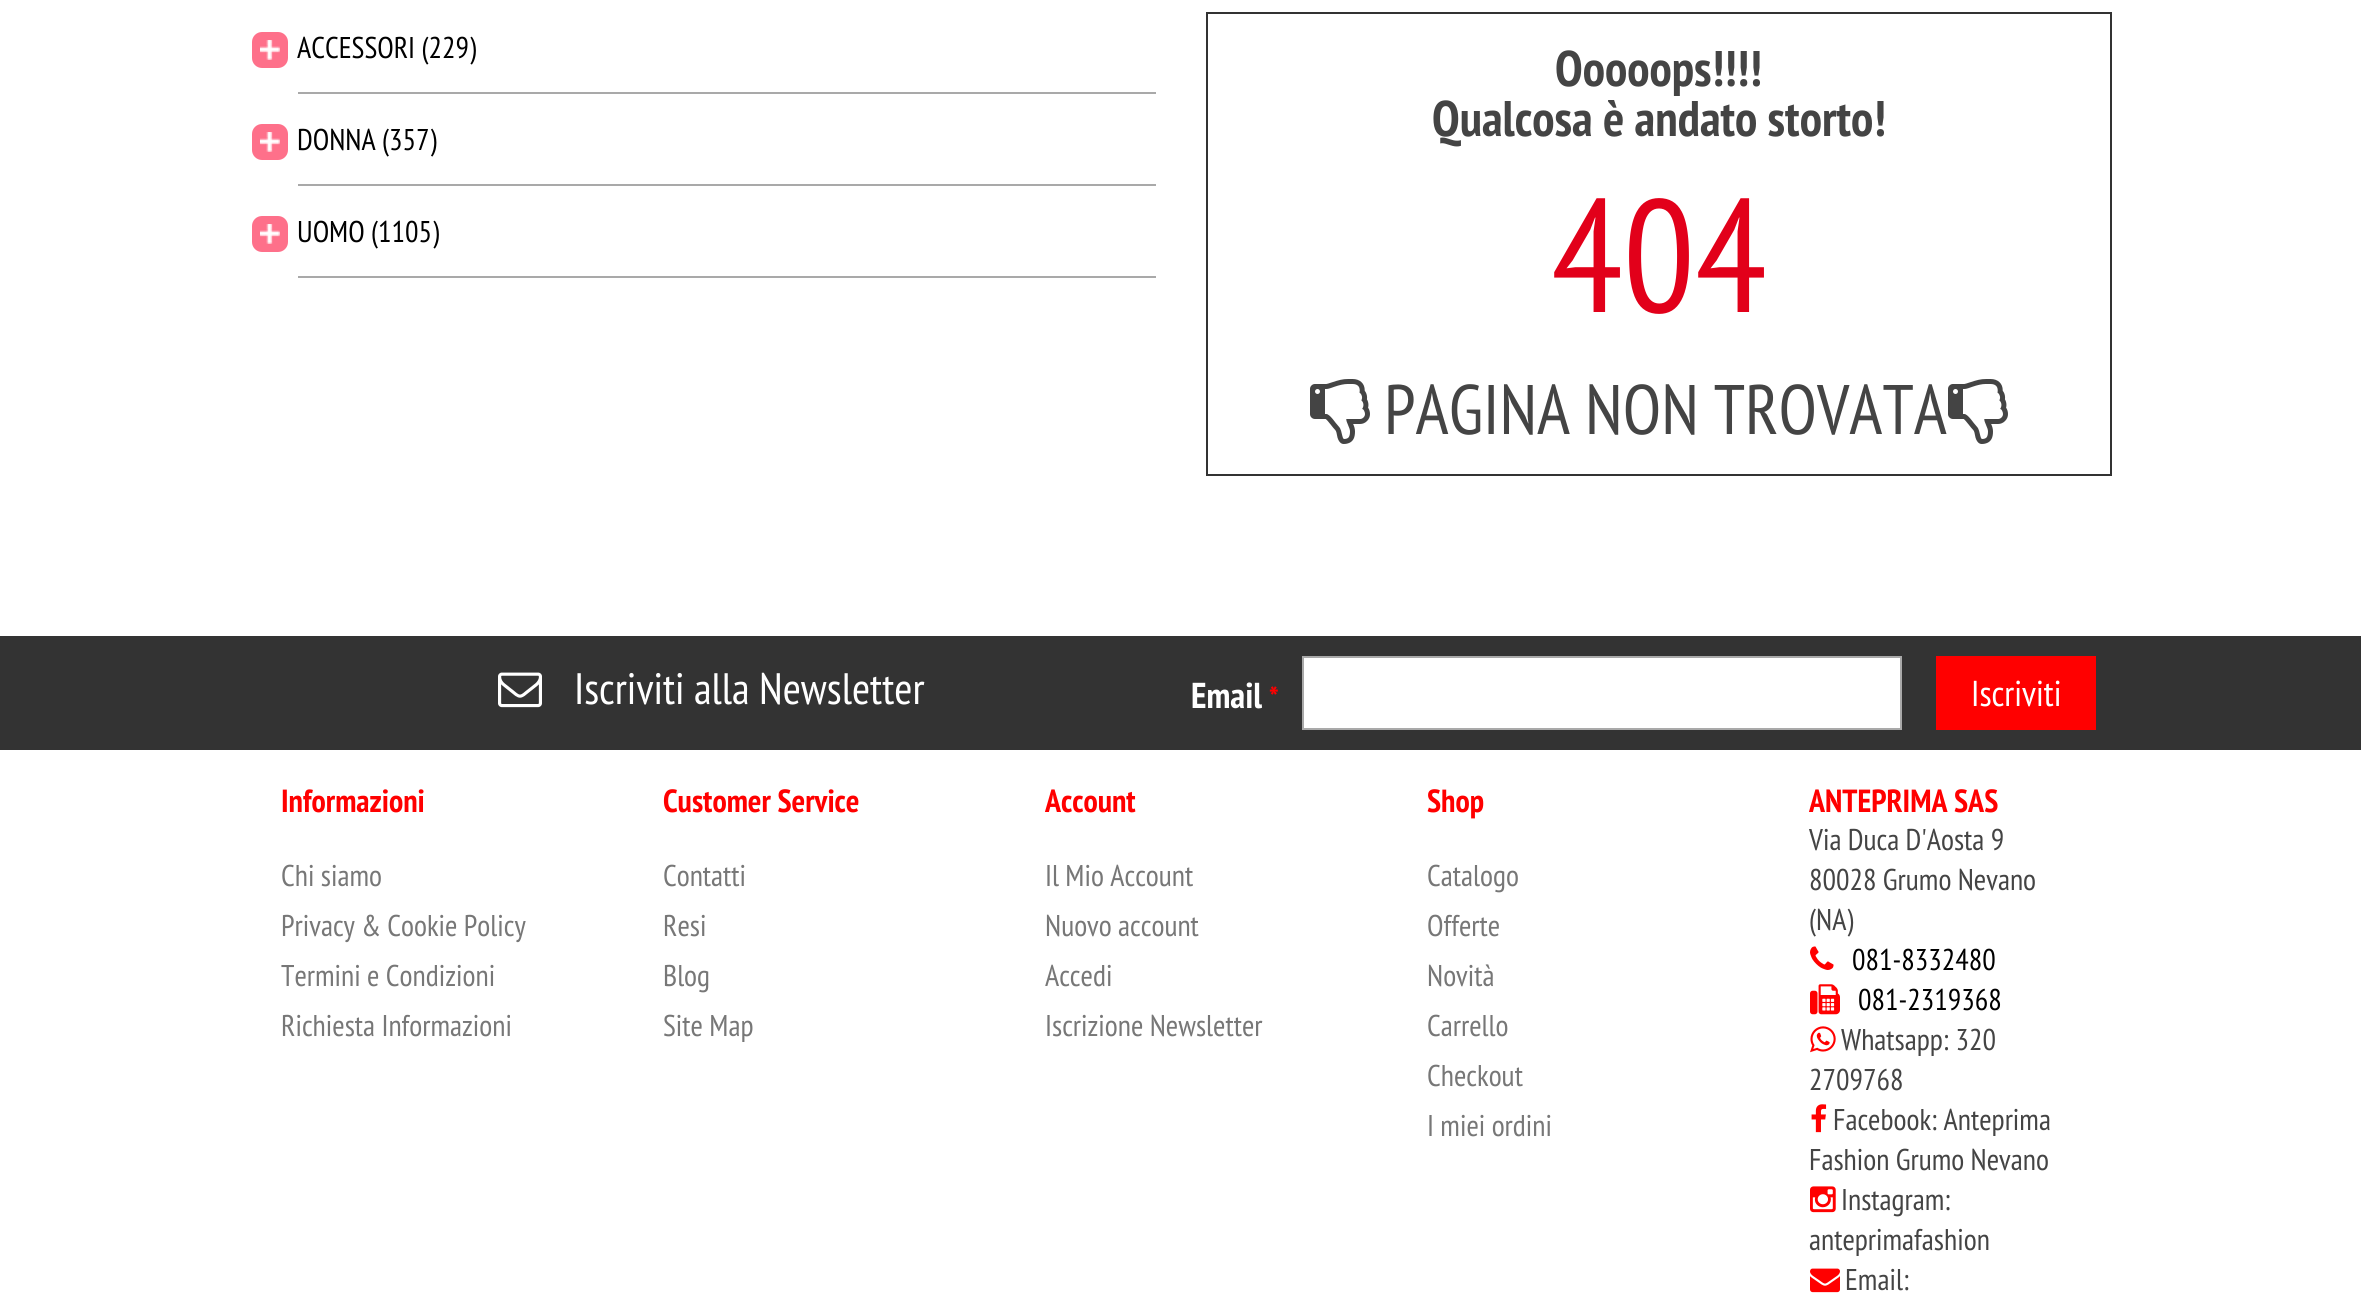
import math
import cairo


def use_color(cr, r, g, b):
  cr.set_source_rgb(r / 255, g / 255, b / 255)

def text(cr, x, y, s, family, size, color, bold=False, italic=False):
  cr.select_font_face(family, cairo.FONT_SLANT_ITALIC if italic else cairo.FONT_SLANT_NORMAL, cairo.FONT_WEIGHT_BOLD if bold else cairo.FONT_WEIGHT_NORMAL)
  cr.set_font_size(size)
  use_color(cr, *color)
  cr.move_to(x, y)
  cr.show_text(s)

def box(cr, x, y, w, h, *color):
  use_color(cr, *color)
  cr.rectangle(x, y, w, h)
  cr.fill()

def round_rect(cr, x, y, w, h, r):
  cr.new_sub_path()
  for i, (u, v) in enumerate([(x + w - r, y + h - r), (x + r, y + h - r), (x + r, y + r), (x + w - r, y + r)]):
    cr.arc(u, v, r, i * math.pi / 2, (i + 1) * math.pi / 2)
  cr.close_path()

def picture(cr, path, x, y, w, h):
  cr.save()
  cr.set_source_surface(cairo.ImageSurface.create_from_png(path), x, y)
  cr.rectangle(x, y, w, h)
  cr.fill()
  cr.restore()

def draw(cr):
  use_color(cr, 255, 255, 255)
  cr.paint()
  use_color(cr, 254, 112, 138)
  round_rect(cr, 252, 32, 36, 36, 10)
  cr.fill()
  picture(cr, "img_01.png", 260, 40, 20, 20)
  box(cr, 298, 92, 858, 2, 169, 169, 169)
  use_color(cr, 254, 112, 138)
  round_rect(cr, 252, 124, 36, 36, 10)
  cr.fill()
  picture(cr, "img_01.png", 260, 132, 20, 20)
  box(cr, 298, 184, 858, 2, 169, 169, 169)
  use_color(cr, 254, 112, 138)
  round_rect(cr, 252, 216, 36, 36, 10)
  cr.fill()
  picture(cr, "img_01.png", 260, 224, 20, 20)
  box(cr, 298, 276, 858, 2, 169, 169, 169)
  cr.rectangle(1207, 13, 904, 462)
  use_color(cr, 51, 51, 51)
  cr.stroke()
  picture(cr, "img_02.png", 1310, 379, 60, 65)
  picture(cr, "img_02.png", 1948, 379, 60, 65)
  box(cr, 0, 636, 2361, 114, 51, 51, 51)
  picture(cr, "img_03.png", 498, 672, 44, 36)
  use_color(cr, 255, 255, 255)
  cr.rectangle(1303, 657, 598, 72)
  cr.fill_preserve()
  use_color(cr, 169, 169, 169)
  cr.stroke()
  box(cr, 1936, 656, 160, 74, 255, 0, 0)
  picture(cr, "img_04.png", 1810, 946, 24, 24)
  picture(cr, "img_05.png", 1810, 984, 30, 31)
  picture(cr, "img_06.png", 1810, 1026, 26, 27)
  picture(cr, "img_07.png", 1811, 1104, 16, 29)
  picture(cr, "img_08.png", 1810, 1186, 26, 27)
  picture(cr, "img_09.png", 1810, 1268, 30, 25)
  text(cr, 297, 58, "ACCESSORI (229)", "PT Sans Narrow", 30, (0, 0, 0))
  text(cr, 297, 150, "DONNA (357)", "PT Sans Narrow", 30, (0, 0, 0))
  text(cr, 297, 242, "UOMO (1105)", "PT Sans Narrow", 30, (0, 0, 0))
  text(cr, 1555, 86, "Ooooops!!!!", "PT Sans Narrow", 50, (68, 68, 68), bold=True)
  text(cr, 1432, 136, "Qualcosa è andato storto!", "PT Sans Narrow", 50, (68, 68, 68), bold=True)
  text(cr, 1551, 312, "404", "PT Sans Narrow", 160, (226, 0, 26))
  text(cr, 1384, 434, "PAGINA NON TROVATA", "PT Sans Narrow", 70, (68, 68, 68))
  text(cr, 574, 704, "Iscriviti alla Newsletter", "PT Sans Narrow", 44, (255, 255, 255))
  text(cr, 1191, 708, "Email", "PT Sans Narrow", 36, (255, 255, 255), bold=True)
  text(cr, 1269, 708, "*", "PT Sans Narrow", 30, (255, 0, 0), bold=True)
  text(cr, 1971, 706, "Iscriviti", "PT Sans Narrow", 36, (255, 255, 255))
  text(cr, 281, 812, "Informazioni", "PT Sans Narrow", 32, (255, 0, 0), bold=True)
  text(cr, 281, 886, "Chi siamo", "PT Sans Narrow", 30, (119, 119, 119))
  text(cr, 281, 936, "Privacy & Cookie Policy", "PT Sans Narrow", 30, (119, 119, 119))
  text(cr, 281, 986, "Termini e Condizioni", "PT Sans Narrow", 30, (119, 119, 119))
  text(cr, 281, 1036, "Richiesta Informazioni", "PT Sans Narrow", 30, (119, 119, 119))
  text(cr, 663, 812, "Customer Service", "PT Sans Narrow", 32, (255, 0, 0), bold=True)
  text(cr, 663, 886, "Contatti", "PT Sans Narrow", 30, (119, 119, 119))
  text(cr, 663, 936, "Resi", "PT Sans Narrow", 30, (119, 119, 119))
  text(cr, 663, 986, "Blog", "PT Sans Narrow", 30, (119, 119, 119))
  text(cr, 663, 1036, "Site Map", "PT Sans Narrow", 30, (119, 119, 119))
  text(cr, 1045, 812, "Account", "PT Sans Narrow", 32, (255, 0, 0), bold=True)
  text(cr, 1045, 886, "Il Mio Account", "PT Sans Narrow", 30, (119, 119, 119))
  text(cr, 1045, 936, "Nuovo account", "PT Sans Narrow", 30, (119, 119, 119))
  text(cr, 1045, 986, "Accedi", "PT Sans Narrow", 30, (119, 119, 119))
  text(cr, 1045, 1036, "Iscrizione Newsletter", "PT Sans Narrow", 30, (119, 119, 119))
  text(cr, 1427, 812, "Shop", "PT Sans Narrow", 32, (255, 0, 0), bold=True)
  text(cr, 1427, 886, "Catalogo", "PT Sans Narrow", 30, (119, 119, 119))
  text(cr, 1427, 936, "Offerte", "PT Sans Narrow", 30, (119, 119, 119))
  text(cr, 1427, 986, "Novità", "PT Sans Narrow", 30, (119, 119, 119))
  text(cr, 1427, 1036, "Carrello", "PT Sans Narrow", 30, (119, 119, 119))
  text(cr, 1427, 1086, "Checkout", "PT Sans Narrow", 30, (119, 119, 119))
  text(cr, 1427, 1136, "I miei ordini", "PT Sans Narrow", 30, (119, 119, 119))
  text(cr, 1809, 812, "ANTEPRIMA SAS", "PT Sans Narrow", 32, (255, 0, 0), bold=True)
  text(cr, 1809, 850, "Via Duca D'Aosta 9", "PT Sans Narrow", 30, (68, 68, 68))
  text(cr, 1809, 890, "80028 Grumo Nevano", "PT Sans Narrow", 30, (68, 68, 68))
  text(cr, 1809, 930, "(NA)", "PT Sans Narrow", 30, (68, 68, 68))
  text(cr, 1852, 970, "081-8332480", "PT Sans Narrow", 30, (0, 0, 0))
  text(cr, 1858, 1010, "081-2319368", "PT Sans Narrow", 30, (0, 0, 0))
  text(cr, 1841, 1050, "Whatsapp: 320", "PT Sans Narrow", 30, (68, 68, 68))
  text(cr, 1809, 1090, "2709768", "PT Sans Narrow", 30, (68, 68, 68))
  text(cr, 1833, 1130, "Facebook: Anteprima", "PT Sans Narrow", 30, (68, 68, 68))
  text(cr, 1809, 1170, "Fashion Grumo Nevano", "PT Sans Narrow", 30, (68, 68, 68))
  text(cr, 1841, 1210, "Instagram:", "PT Sans Narrow", 30, (68, 68, 68))
  text(cr, 1809, 1250, "anteprimafashion", "PT Sans Narrow", 30, (68, 68, 68))
  text(cr, 1845, 1290, "Email:", "PT Sans Narrow", 30, (68, 68, 68))


surface = cairo.ImageSurface(cairo.FORMAT_RGB24, 2361, 1305)
cr = cairo.Context(surface)
options = cairo.FontOptions()
options.set_hint_metrics(cairo.HINT_METRICS_OFF)
options.set_hint_style(cairo.HINT_STYLE_NONE)
cr.set_font_options(options)
cr.set_miter_limit(4)
draw(cr)
surface.write_to_png("out.png")
